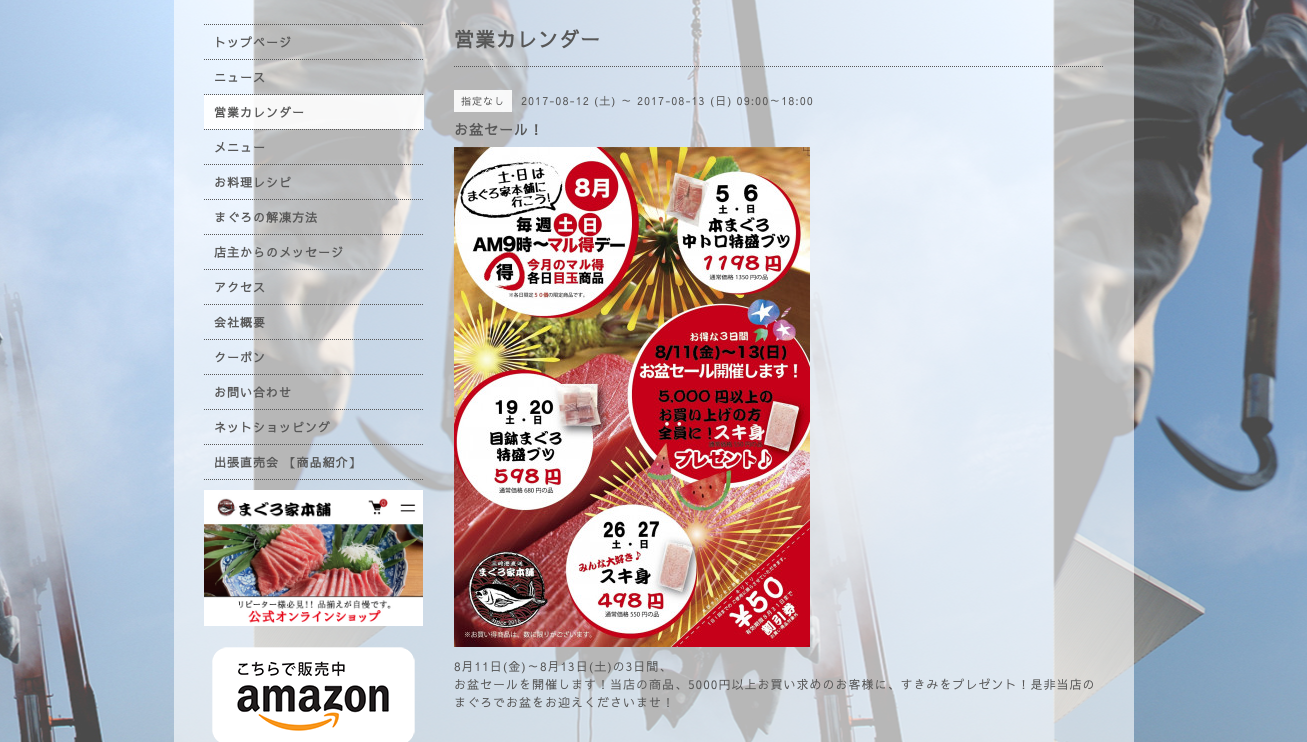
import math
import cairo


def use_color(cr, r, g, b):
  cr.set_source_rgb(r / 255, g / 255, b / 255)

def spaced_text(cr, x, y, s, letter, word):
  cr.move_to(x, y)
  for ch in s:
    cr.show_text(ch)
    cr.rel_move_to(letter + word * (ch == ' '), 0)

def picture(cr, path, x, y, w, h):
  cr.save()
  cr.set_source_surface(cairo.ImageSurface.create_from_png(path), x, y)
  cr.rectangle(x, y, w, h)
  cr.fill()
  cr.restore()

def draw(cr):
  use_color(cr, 255, 255, 255)
  cr.paint()
  picture(cr, "img_01.png", 0, 0, 1307, 742)
  cr.set_source_rgba(1, 1, 1, 0.6)
  cr.rectangle(174, 0, 960, 742)
  cr.fill()
  cr.new_path()
  cr.move_to(204, 24.5)
  cr.line_to(424, 24.5)
  use_color(cr, 87, 87, 87)
  cr.set_line_width(1)
  cr.set_dash([1, 1])
  cr.stroke()
  cr.new_path()
  cr.move_to(204, 59.5)
  cr.line_to(424, 59.5)
  cr.stroke()
  cr.new_path()
  cr.move_to(204, 94.5)
  cr.line_to(424, 94.5)
  cr.stroke()
  cr.new_path()
  cr.move_to(204, 129.5)
  cr.line_to(424, 129.5)
  cr.stroke()
  cr.set_source_rgba(1, 1, 1, 0.9)
  cr.rectangle(204, 95, 220, 34)
  cr.fill()
  cr.new_path()
  cr.move_to(204, 164.5)
  cr.line_to(424, 164.5)
  use_color(cr, 87, 87, 87)
  cr.stroke()
  cr.new_path()
  cr.move_to(204, 199.5)
  cr.line_to(424, 199.5)
  cr.stroke()
  cr.new_path()
  cr.move_to(204, 234.5)
  cr.line_to(424, 234.5)
  cr.stroke()
  cr.new_path()
  cr.move_to(204, 269.5)
  cr.line_to(424, 269.5)
  cr.stroke()
  cr.new_path()
  cr.move_to(204, 304.5)
  cr.line_to(424, 304.5)
  cr.stroke()
  cr.new_path()
  cr.move_to(204, 339.5)
  cr.line_to(424, 339.5)
  cr.stroke()
  cr.new_path()
  cr.move_to(204, 374.5)
  cr.line_to(424, 374.5)
  cr.stroke()
  cr.new_path()
  cr.move_to(204, 409.5)
  cr.line_to(424, 409.5)
  cr.stroke()
  cr.new_path()
  cr.move_to(204, 444.5)
  cr.line_to(424, 444.5)
  cr.stroke()
  cr.new_path()
  cr.move_to(204, 479.5)
  cr.line_to(424, 479.5)
  cr.stroke()
  picture(cr, "img_02.png", 204, 490, 219, 136)
  picture(cr, "img_03.png", 212, 647, 203, 95)
  cr.new_path()
  cr.move_to(454, 66.5)
  cr.line_to(1104, 66.5)
  cr.stroke()
  cr.set_source_rgba(1, 1, 1, 0.9)
  cr.rectangle(454, 90, 58, 22)
  cr.fill()
  picture(cr, "img_04.png", 454, 147, 356, 500)
  cr.select_font_face("Sawarabi Gothic", cairo.FONT_SLANT_NORMAL, cairo.FONT_WEIGHT_BOLD)
  cr.set_font_size(12)
  use_color(cr, 87, 87, 87)
  spaced_text(cr, 214, 47, "トップページ", 1, 0)
  spaced_text(cr, 214, 82, "ニュース", 1, 0)
  spaced_text(cr, 214, 117, "営業カレンダー", 1, 0)
  spaced_text(cr, 214, 152, "メニュー", 1, 0)
  spaced_text(cr, 214, 187, "お料理レシピ", 1, 0)
  spaced_text(cr, 214, 222, "まぐろの解凍方法", 1, 0)
  spaced_text(cr, 214, 257, "店主からのメッセージ", 1, 0)
  spaced_text(cr, 214, 292, "アクセス", 1, 0)
  spaced_text(cr, 214, 327, "会社概要", 1, 0)
  spaced_text(cr, 214, 362, "クーポン", 1, 0)
  spaced_text(cr, 214, 397, "お問い合わせ", 1, 0)
  spaced_text(cr, 214, 432, "ネットショッピング", 1, 0)
  spaced_text(cr, 214, 467, "出張直売会 【商品紹介】", 1, 0)
  cr.set_font_size(20)
  spaced_text(cr, 454, 47, "営業カレンダー", 1, 0)
  cr.select_font_face("Sawarabi Gothic")
  cr.set_font_size(10)
  spaced_text(cr, 461, 105, "指定なし", 1, 0)
  cr.set_font_size(11)
  spaced_text(cr, 521, 105, "2017-08-12 (土) ～ 2017-08-13 (日) 09:00～18:00", 1, 0)
  cr.select_font_face("Sawarabi Gothic", cairo.FONT_SLANT_NORMAL, cairo.FONT_WEIGHT_BOLD)
  cr.set_font_size(14)
  spaced_text(cr, 454, 135, "お盆セール！", 1, 0)
  cr.select_font_face("Sawarabi Gothic")
  cr.set_font_size(12)
  spaced_text(cr, 454, 671, "8月11日(金)～8月13日(土)の3日間、", 1, 0)
  spaced_text(cr, 454, 689, "お盆セールを開催します！当店の商品、5000円以上お買い求めのお客様に、すきみをプレゼント！是非当店の", 1, 0)
  spaced_text(cr, 454, 707, "まぐろでお盆をお迎えくださいませ！", 1, 0)


surface = cairo.ImageSurface(cairo.FORMAT_RGB24, 1307, 742)
cr = cairo.Context(surface)
options = cairo.FontOptions()
options.set_hint_metrics(cairo.HINT_METRICS_OFF)
options.set_hint_style(cairo.HINT_STYLE_NONE)
cr.set_font_options(options)
cr.set_miter_limit(4)
draw(cr)
surface.write_to_png("out.png")
